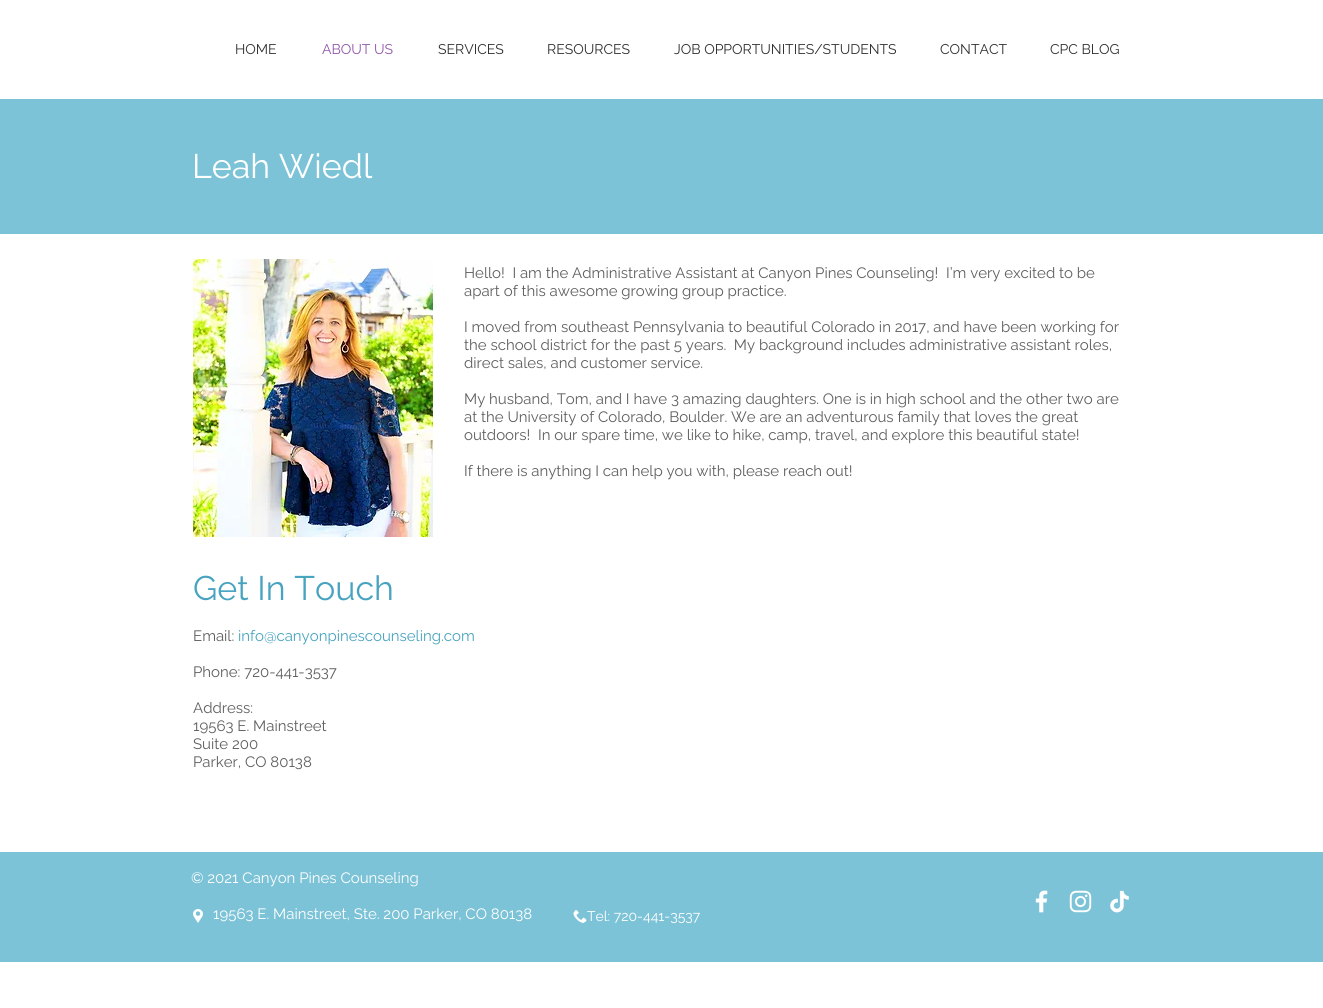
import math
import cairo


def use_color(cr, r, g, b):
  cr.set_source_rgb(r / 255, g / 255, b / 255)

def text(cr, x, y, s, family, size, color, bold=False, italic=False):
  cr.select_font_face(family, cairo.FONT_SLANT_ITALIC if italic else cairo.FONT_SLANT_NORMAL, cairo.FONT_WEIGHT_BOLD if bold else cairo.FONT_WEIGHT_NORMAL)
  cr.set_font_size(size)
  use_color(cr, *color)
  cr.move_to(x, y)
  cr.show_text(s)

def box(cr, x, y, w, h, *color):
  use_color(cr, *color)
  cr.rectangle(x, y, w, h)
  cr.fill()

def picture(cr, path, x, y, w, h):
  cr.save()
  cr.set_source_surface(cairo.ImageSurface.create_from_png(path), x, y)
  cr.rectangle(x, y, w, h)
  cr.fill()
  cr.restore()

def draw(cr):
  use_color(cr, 255, 255, 255)
  cr.paint()
  box(cr, 0, 99, 1323, 135, 124, 195, 216)
  picture(cr, "img_01.png", 193, 259, 240, 278)
  box(cr, 0, 852, 1323, 110, 124, 195, 216)
  picture(cr, "img_02.png", 1035, 890, 13, 23)
  picture(cr, "img_03.png", 1069, 890, 23, 23)
  picture(cr, "img_04.png", 1110, 890, 19, 23)
  picture(cr, "img_05.png", 193, 909, 10, 14)
  picture(cr, "img_06.png", 573, 910, 14, 13)
  text(cr, 235, 54, "HOME", "Raleway", 14, (47, 46, 46))
  text(cr, 322, 54, "ABOUT US", "Raleway", 14, (145, 85, 167))
  text(cr, 438, 54, "SERVICES", "Raleway", 14, (47, 46, 46))
  text(cr, 547, 54, "RESOURCES", "Raleway", 14, (47, 46, 46))
  text(cr, 674, 54, "JOB OPPORTUNITIES/STUDENTS", "Raleway", 14, (47, 46, 46))
  text(cr, 940, 54, "CONTACT", "Raleway", 14, (47, 46, 46))
  text(cr, 1050, 54, "CPC BLOG", "Raleway", 14, (47, 46, 46))
  text(cr, 192, 178, "Leah Wiedl", "Raleway", 34, (255, 255, 255))
  text(cr, 464, 278, "Hello!  I am the Administrative Assistant at Canyon Pines Counseling!  I’m very excited to be", "Raleway", 15, (96, 94, 94))
  text(cr, 464, 296, "apart of this awesome growing group practice.", "Raleway", 15, (96, 94, 94))
  text(cr, 464, 332, "I moved from southeast Pennsylvania to beautiful Colorado in 2017, and have been working for", "Raleway", 15, (96, 94, 94))
  text(cr, 464, 350, "the school district for the past 5 years.  My background includes administrative assistant roles,", "Raleway", 15, (96, 94, 94))
  text(cr, 464, 368, "direct sales, and customer service.", "Raleway", 15, (96, 94, 94))
  text(cr, 464, 404, "My husband, Tom, and I have 3 amazing daughters. One is in high school and the other two are", "Raleway", 15, (96, 94, 94))
  text(cr, 464, 422, "at the University of Colorado, Boulder. We are an adventurous family that loves the great", "Raleway", 15, (96, 94, 94))
  text(cr, 464, 440, "outdoors!  In our spare time, we like to hike, camp, travel, and explore this beautiful state!", "Raleway", 15, (96, 94, 94))
  text(cr, 464, 476, "If there is anything I can help you with, please reach out!", "Raleway", 15, (96, 94, 94))
  text(cr, 193, 600, "Get In Touch", "Raleway", 34, (71, 163, 191))
  text(cr, 193, 641, "Email:", "Raleway", 15, (96, 94, 94))
  text(cr, 238, 641, "info@canyonpinescounseling.com", "Raleway", 15, (71, 163, 191))
  text(cr, 193, 677, "Phone: 720-441-3537", "Raleway", 15, (96, 94, 94))
  text(cr, 193, 713, "Address:", "Raleway", 15, (96, 94, 94))
  text(cr, 193, 731, "19563 E. Mainstreet", "Raleway", 15, (96, 94, 94))
  text(cr, 193, 749, "Suite 200", "Raleway", 15, (96, 94, 94))
  text(cr, 193, 767, "Parker, CO 80138", "Raleway", 15, (96, 94, 94))
  text(cr, 191, 883, "© 2021 Canyon Pines Counseling", "Raleway", 15, (255, 255, 255))
  text(cr, 213, 919, "19563 E. Mainstreet, Ste. 200 Parker, CO 80138", "Raleway", 15, (255, 255, 255))
  text(cr, 587, 921, "Tel: 720-441-3537", "Raleway", 14, (255, 255, 255))


surface = cairo.ImageSurface(cairo.FORMAT_RGB24, 1323, 1008)
cr = cairo.Context(surface)
options = cairo.FontOptions()
options.set_hint_metrics(cairo.HINT_METRICS_OFF)
options.set_hint_style(cairo.HINT_STYLE_NONE)
cr.set_font_options(options)
cr.set_miter_limit(4)
draw(cr)
surface.write_to_png("out.png")
